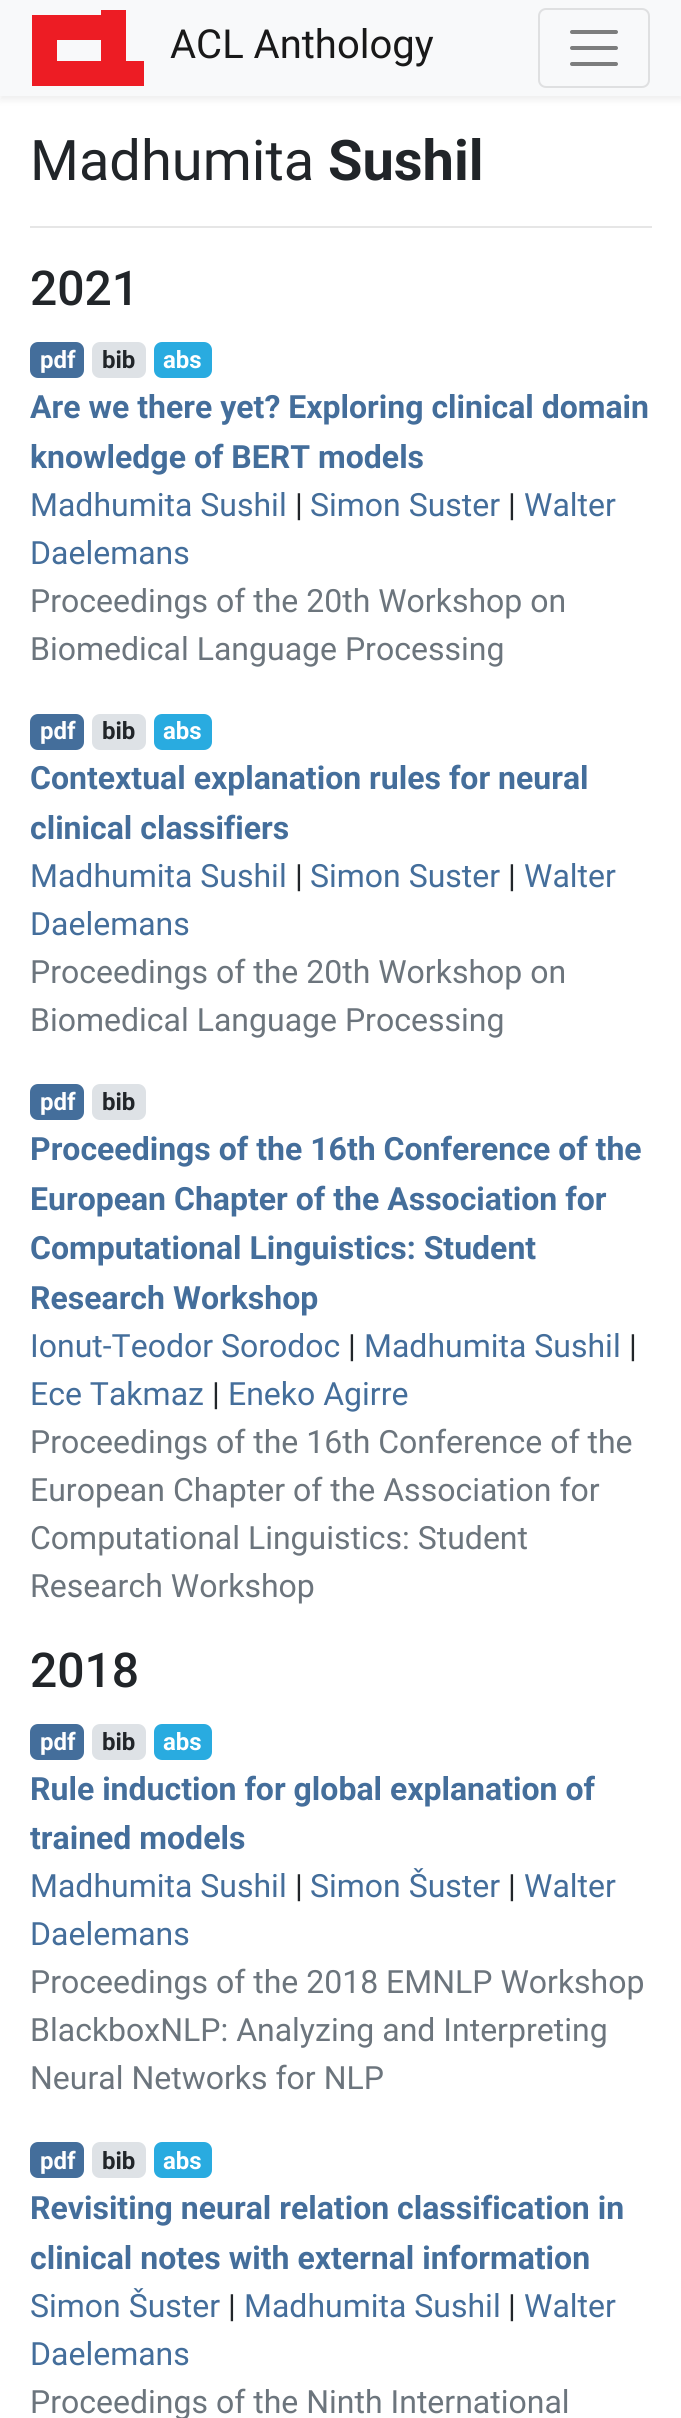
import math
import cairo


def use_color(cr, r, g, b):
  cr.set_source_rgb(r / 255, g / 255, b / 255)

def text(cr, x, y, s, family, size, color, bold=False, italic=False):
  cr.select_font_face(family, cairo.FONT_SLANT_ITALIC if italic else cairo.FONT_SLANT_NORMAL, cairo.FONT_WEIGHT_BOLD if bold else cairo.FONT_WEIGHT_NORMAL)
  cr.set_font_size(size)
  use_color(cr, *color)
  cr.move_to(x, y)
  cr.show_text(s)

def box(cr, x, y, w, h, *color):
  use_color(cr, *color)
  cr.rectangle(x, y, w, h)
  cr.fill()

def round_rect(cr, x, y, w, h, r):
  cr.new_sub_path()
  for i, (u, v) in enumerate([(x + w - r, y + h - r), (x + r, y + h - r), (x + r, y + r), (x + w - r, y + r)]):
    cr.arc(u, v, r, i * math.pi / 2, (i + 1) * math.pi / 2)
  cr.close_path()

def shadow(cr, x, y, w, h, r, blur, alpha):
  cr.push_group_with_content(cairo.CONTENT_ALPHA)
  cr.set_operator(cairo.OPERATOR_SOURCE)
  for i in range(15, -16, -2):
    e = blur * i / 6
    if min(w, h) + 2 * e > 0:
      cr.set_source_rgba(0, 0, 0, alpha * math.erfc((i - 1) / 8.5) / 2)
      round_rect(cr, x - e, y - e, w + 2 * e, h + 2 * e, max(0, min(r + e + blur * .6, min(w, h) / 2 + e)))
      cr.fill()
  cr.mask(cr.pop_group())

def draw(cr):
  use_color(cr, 255, 255, 255)
  cr.paint()
  use_color(cr, 0, 0, 0)
  shadow(cr, 0, 4, 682, 96, 0, 4, 0.07)
  box(cr, 0, 0, 681, 96, 248, 249, 250)
  use_color(cr, 237, 28, 36)
  cr.set_fill_rule(cairo.FILL_RULE_EVEN_ODD)
  cr.new_path()
  cr.move_to(101, 10)
  cr.line_to(101, 15)
  cr.line_to(32, 15)
  cr.line_to(32, 86)
  cr.line_to(144, 86)
  cr.line_to(144, 61)
  cr.line_to(126, 61)
  cr.line_to(126, 10)
  cr.close_path()
  cr.move_to(57, 40)
  cr.line_to(101, 40)
  cr.line_to(101, 61)
  cr.line_to(57, 61)
  cr.close_path()
  cr.fill()
  round_rect(cr, 539, 9, 110, 78, 7)
  use_color(cr, 223, 224, 225)
  cr.stroke()
  cr.new_path()
  cr.move_to(572, 32)
  cr.line_to(616, 32)
  cr.move_to(572, 48)
  cr.line_to(616, 48)
  cr.move_to(572, 64)
  cr.line_to(616, 64)
  use_color(cr, 124, 125, 125)
  cr.set_line_width(4)
  cr.set_line_cap(cairo.LINE_CAP_ROUND)
  cr.stroke()
  box(cr, 30, 226, 622, 2, 230, 230, 230)
  use_color(cr, 68, 110, 155)
  round_rect(cr, 30, 342, 54, 36, 8)
  cr.fill()
  use_color(cr, 222, 226, 230)
  round_rect(cr, 92, 342, 54, 36, 8)
  cr.fill()
  use_color(cr, 41, 171, 224)
  round_rect(cr, 154, 342, 58, 36, 8)
  cr.fill()
  use_color(cr, 68, 110, 155)
  round_rect(cr, 30, 714, 54, 36, 8)
  cr.fill()
  use_color(cr, 222, 226, 230)
  round_rect(cr, 92, 714, 54, 36, 8)
  cr.fill()
  use_color(cr, 41, 171, 224)
  round_rect(cr, 154, 714, 58, 36, 8)
  cr.fill()
  use_color(cr, 68, 110, 155)
  round_rect(cr, 30, 1084, 54, 36, 8)
  cr.fill()
  use_color(cr, 222, 226, 230)
  round_rect(cr, 92, 1084, 54, 36, 8)
  cr.fill()
  use_color(cr, 68, 110, 155)
  round_rect(cr, 30, 1724, 54, 36, 8)
  cr.fill()
  use_color(cr, 222, 226, 230)
  round_rect(cr, 92, 1724, 54, 36, 8)
  cr.fill()
  use_color(cr, 41, 171, 224)
  round_rect(cr, 154, 1724, 58, 36, 8)
  cr.fill()
  use_color(cr, 68, 110, 155)
  round_rect(cr, 30, 2142, 54, 36, 8)
  cr.fill()
  use_color(cr, 222, 226, 230)
  round_rect(cr, 92, 2142, 54, 36, 8)
  cr.fill()
  use_color(cr, 41, 171, 224)
  round_rect(cr, 154, 2142, 58, 36, 8)
  cr.fill()
  text(cr, 170, 58, "ACL Anthology", "Roboto", 40, (25, 25, 25))
  text(cr, 30, 180, "Madhumita", "Roboto", 56, (33, 37, 41))
  text(cr, 328, 180, "Sushil", "Roboto", 56, (33, 37, 41), bold=True)
  text(cr, 30, 305, "2021", "Roboto Medium", 48, (33, 37, 41))
  text(cr, 40, 368, "pdf", "Roboto", 24, (255, 255, 255), bold=True)
  text(cr, 102, 368, "bib", "Roboto", 24, (33, 37, 41), bold=True)
  text(cr, 163, 368, "abs", "Roboto", 24, (255, 255, 255), bold=True)
  text(cr, 30, 418, "Are we there yet? Exploring clinical domain", "Roboto", 32, (68, 110, 155), bold=True)
  text(cr, 30, 468, "knowledge of BERT models", "Roboto", 32, (68, 110, 155), bold=True)
  text(cr, 30, 516, "Madhumita Sushil", "Roboto", 32, (68, 110, 155))
  text(cr, 295, 516, "|", "Roboto", 32, (33, 37, 41))
  text(cr, 310, 516, "Simon Suster", "Roboto", 32, (68, 110, 155))
  text(cr, 508, 516, "|", "Roboto", 32, (33, 37, 41))
  text(cr, 524, 516, "Walter", "Roboto", 32, (68, 110, 155))
  text(cr, 30, 564, "Daelemans", "Roboto", 32, (68, 110, 155))
  text(cr, 30, 612, "Proceedings of the 20th Workshop on", "Roboto", 32, (108, 117, 125))
  text(cr, 30, 660, "Biomedical Language Processing", "Roboto", 32, (108, 117, 125))
  text(cr, 40, 739, "pdf", "Roboto", 24, (255, 255, 255), bold=True)
  text(cr, 102, 739, "bib", "Roboto", 24, (33, 37, 41), bold=True)
  text(cr, 163, 739, "abs", "Roboto", 24, (255, 255, 255), bold=True)
  text(cr, 30, 789, "Contextual explanation rules for neural", "Roboto", 32, (68, 110, 155), bold=True)
  text(cr, 30, 839, "clinical classifiers", "Roboto", 32, (68, 110, 155), bold=True)
  text(cr, 30, 887, "Madhumita Sushil", "Roboto", 32, (68, 110, 155))
  text(cr, 295, 887, "|", "Roboto", 32, (33, 37, 41))
  text(cr, 310, 887, "Simon Suster", "Roboto", 32, (68, 110, 155))
  text(cr, 508, 887, "|", "Roboto", 32, (33, 37, 41))
  text(cr, 524, 887, "Walter", "Roboto", 32, (68, 110, 155))
  text(cr, 30, 935, "Daelemans", "Roboto", 32, (68, 110, 155))
  text(cr, 30, 983, "Proceedings of the 20th Workshop on", "Roboto", 32, (108, 117, 125))
  text(cr, 30, 1031, "Biomedical Language Processing", "Roboto", 32, (108, 117, 125))
  text(cr, 40, 1110, "pdf", "Roboto", 24, (255, 255, 255), bold=True)
  text(cr, 102, 1110, "bib", "Roboto", 24, (33, 37, 41), bold=True)
  text(cr, 30, 1160, "Proceedings of the 16th Conference of the", "Roboto", 32, (68, 110, 155), bold=True)
  text(cr, 30, 1210, "European Chapter of the Association for", "Roboto", 32, (68, 110, 155), bold=True)
  text(cr, 30, 1259, "Computational Linguistics: Student", "Roboto", 32, (68, 110, 155), bold=True)
  text(cr, 30, 1309, "Research Workshop", "Roboto", 32, (68, 110, 155), bold=True)
  text(cr, 30, 1357, "Ionut-Teodor Sorodoc", "Roboto", 32, (68, 110, 155))
  text(cr, 348, 1357, "|", "Roboto", 32, (33, 37, 41))
  text(cr, 364, 1357, "Madhumita Sushil", "Roboto", 32, (68, 110, 155))
  text(cr, 629, 1357, "|", "Roboto", 32, (33, 37, 41))
  text(cr, 30, 1405, "Ece Takmaz", "Roboto", 32, (68, 110, 155))
  text(cr, 212, 1405, "|", "Roboto", 32, (33, 37, 41))
  text(cr, 228, 1405, "Eneko Agirre", "Roboto", 32, (68, 110, 155))
  text(cr, 30, 1453, "Proceedings of the 16th Conference of the", "Roboto", 32, (108, 117, 125))
  text(cr, 30, 1501, "European Chapter of the Association for", "Roboto", 32, (108, 117, 125))
  text(cr, 30, 1549, "Computational Linguistics: Student", "Roboto", 32, (108, 117, 125))
  text(cr, 30, 1597, "Research Workshop", "Roboto", 32, (108, 117, 125))
  text(cr, 30, 1687, "2018", "Roboto Medium", 48, (33, 37, 41))
  text(cr, 40, 1750, "pdf", "Roboto", 24, (255, 255, 255), bold=True)
  text(cr, 102, 1750, "bib", "Roboto", 24, (33, 37, 41), bold=True)
  text(cr, 163, 1750, "abs", "Roboto", 24, (255, 255, 255), bold=True)
  text(cr, 30, 1800, "Rule induction for global explanation of", "Roboto", 32, (68, 110, 155), bold=True)
  text(cr, 30, 1849, "trained models", "Roboto", 32, (68, 110, 155), bold=True)
  text(cr, 30, 1897, "Madhumita Sushil", "Roboto", 32, (68, 110, 155))
  text(cr, 295, 1897, "|", "Roboto", 32, (33, 37, 41))
  text(cr, 310, 1897, "Simon Šuster", "Roboto", 32, (68, 110, 155))
  text(cr, 508, 1897, "|", "Roboto", 32, (33, 37, 41))
  text(cr, 524, 1897, "Walter", "Roboto", 32, (68, 110, 155))
  text(cr, 30, 1945, "Daelemans", "Roboto", 32, (68, 110, 155))
  text(cr, 30, 1993, "Proceedings of the 2018 EMNLP Workshop", "Roboto", 32, (108, 117, 125))
  text(cr, 30, 2041, "BlackboxNLP: Analyzing and Interpreting", "Roboto", 32, (108, 117, 125))
  text(cr, 30, 2089, "Neural Networks for NLP", "Roboto", 32, (108, 117, 125))
  text(cr, 40, 2169, "pdf", "Roboto", 24, (255, 255, 255), bold=True)
  text(cr, 102, 2169, "bib", "Roboto", 24, (33, 37, 41), bold=True)
  text(cr, 163, 2169, "abs", "Roboto", 24, (255, 255, 255), bold=True)
  text(cr, 30, 2219, "Revisiting neural relation classification in", "Roboto", 32, (68, 110, 155), bold=True)
  text(cr, 30, 2269, "clinical notes with external information", "Roboto", 32, (68, 110, 155), bold=True)
  text(cr, 30, 2317, "Simon Šuster", "Roboto", 32, (68, 110, 155))
  text(cr, 228, 2317, "|", "Roboto", 32, (33, 37, 41))
  text(cr, 244, 2317, "Madhumita Sushil", "Roboto", 32, (68, 110, 155))
  text(cr, 508, 2317, "|", "Roboto", 32, (33, 37, 41))
  text(cr, 524, 2317, "Walter", "Roboto", 32, (68, 110, 155))
  text(cr, 30, 2365, "Daelemans", "Roboto", 32, (68, 110, 155))
  text(cr, 30, 2413, "Proceedings of the Ninth International", "Roboto", 32, (108, 117, 125))


surface = cairo.ImageSurface(cairo.FORMAT_RGB24, 681, 2418)
cr = cairo.Context(surface)
options = cairo.FontOptions()
options.set_hint_metrics(cairo.HINT_METRICS_OFF)
options.set_hint_style(cairo.HINT_STYLE_NONE)
cr.set_font_options(options)
cr.set_miter_limit(4)
draw(cr)
surface.write_to_png("out.png")
